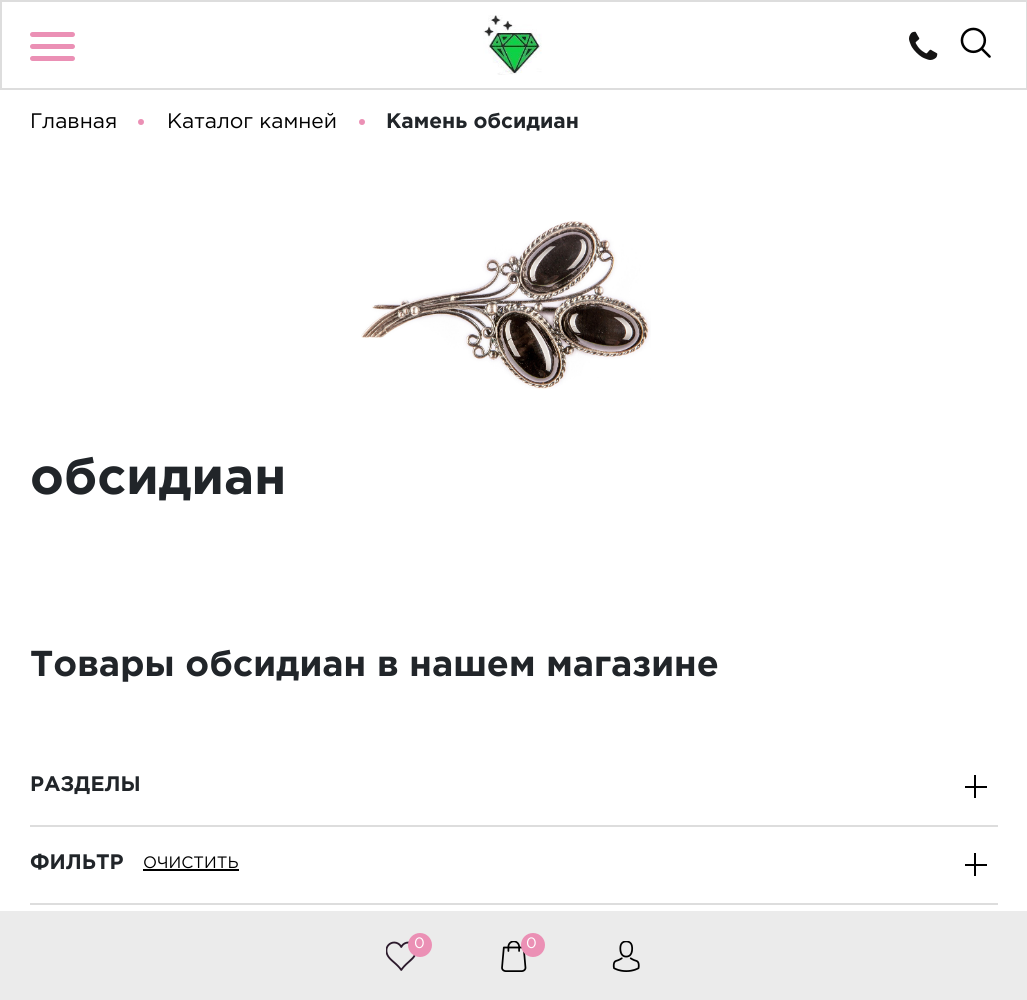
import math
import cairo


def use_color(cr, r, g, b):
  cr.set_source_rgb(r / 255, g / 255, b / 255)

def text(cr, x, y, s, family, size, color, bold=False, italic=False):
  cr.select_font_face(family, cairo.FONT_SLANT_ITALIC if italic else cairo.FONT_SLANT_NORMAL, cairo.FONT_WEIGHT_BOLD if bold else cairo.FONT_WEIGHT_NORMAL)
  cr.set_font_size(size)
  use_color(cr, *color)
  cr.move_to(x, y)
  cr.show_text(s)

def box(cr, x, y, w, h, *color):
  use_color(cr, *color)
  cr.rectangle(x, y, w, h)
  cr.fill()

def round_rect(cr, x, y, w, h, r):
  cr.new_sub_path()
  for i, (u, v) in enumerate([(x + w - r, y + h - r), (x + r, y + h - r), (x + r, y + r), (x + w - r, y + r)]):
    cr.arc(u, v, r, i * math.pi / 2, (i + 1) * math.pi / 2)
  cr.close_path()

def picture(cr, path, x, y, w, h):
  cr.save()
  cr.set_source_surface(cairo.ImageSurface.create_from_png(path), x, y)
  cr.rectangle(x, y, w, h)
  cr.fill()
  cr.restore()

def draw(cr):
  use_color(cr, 255, 255, 255)
  cr.paint()
  use_color(cr, 235, 144, 181)
  cr.arc(141, 122, 3, 0, 2 * math.pi)
  cr.fill()
  cr.arc(362, 122, 3, 0, 2 * math.pi)
  cr.fill()
  picture(cr, "img_01.png", 361, 221, 290, 168)
  box(cr, 30, 825, 968, 2, 221, 221, 221)
  box(cr, 965, 786, 22, 2, 0, 0, 0)
  box(cr, 974, 775, 2, 23, 0, 0, 0)
  box(cr, 30, 903, 968, 2, 221, 221, 221)
  box(cr, 143, 869, 96, 2, 0, 0, 0)
  box(cr, 965, 864, 22, 2, 0, 0, 0)
  box(cr, 974, 853, 2, 23, 0, 0, 0)
  cr.rectangle(1, 1, 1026, 88)
  use_color(cr, 221, 221, 221)
  cr.stroke()
  picture(cr, "img_02.png", 909, 31, 29, 29)
  picture(cr, "img_03.png", 960, 27, 31, 31)
  use_color(cr, 235, 144, 181)
  round_rect(cr, 30, 44, 45, 5, 2.5)
  cr.fill()
  round_rect(cr, 30, 32, 45, 5, 2.5)
  cr.fill()
  round_rect(cr, 30, 56, 45, 5, 2.5)
  cr.fill()
  picture(cr, "img_04.png", 483, 15, 59, 60)
  box(cr, 0, 911, 1027, 89, 235, 235, 235)
  picture(cr, "img_05.png", 386, 941, 30, 30)
  use_color(cr, 235, 144, 181)
  cr.arc(420, 945, 12, 0, 2 * math.pi)
  cr.fill()
  picture(cr, "img_06.png", 501, 941, 26, 31)
  cr.arc(533, 945, 12, 0, 2 * math.pi)
  cr.fill()
  picture(cr, "img_07.png", 612, 941, 28, 31)
  text(cr, 30, 128, "Главная", "Gotham", 21, (0, 0, 0))
  text(cr, 167, 128, "Каталог камней", "Gotham", 21, (0, 0, 0))
  text(cr, 386, 128, "Камень обсидиан", "Gotham", 21, (33, 37, 41), bold=True)
  text(cr, 30, 494, "обсидиан", "Gotham", 51, (33, 37, 41), bold=True)
  text(cr, 30, 676, "Товары обсидиан в нашем магазине", "Gotham", 36, (33, 37, 41), bold=True)
  text(cr, 30, 791, "РАЗДЕЛЫ", "Gotham", 21, (33, 37, 41), bold=True)
  text(cr, 30, 869, "ФИЛЬТР", "Gotham", 21, (33, 37, 41), bold=True)
  text(cr, 143, 868, "ОЧИСТИТЬ", "Gotham", 16.5, (0, 0, 0))
  text(cr, 414, 948, "0", "Gotham", 15, (255, 255, 255))
  text(cr, 526, 948, "0", "Gotham", 15, (255, 255, 255))


surface = cairo.ImageSurface(cairo.FORMAT_RGB24, 1027, 1000)
cr = cairo.Context(surface)
options = cairo.FontOptions()
options.set_hint_metrics(cairo.HINT_METRICS_OFF)
options.set_hint_style(cairo.HINT_STYLE_NONE)
cr.set_font_options(options)
cr.set_miter_limit(4)
draw(cr)
surface.write_to_png("out.png")
